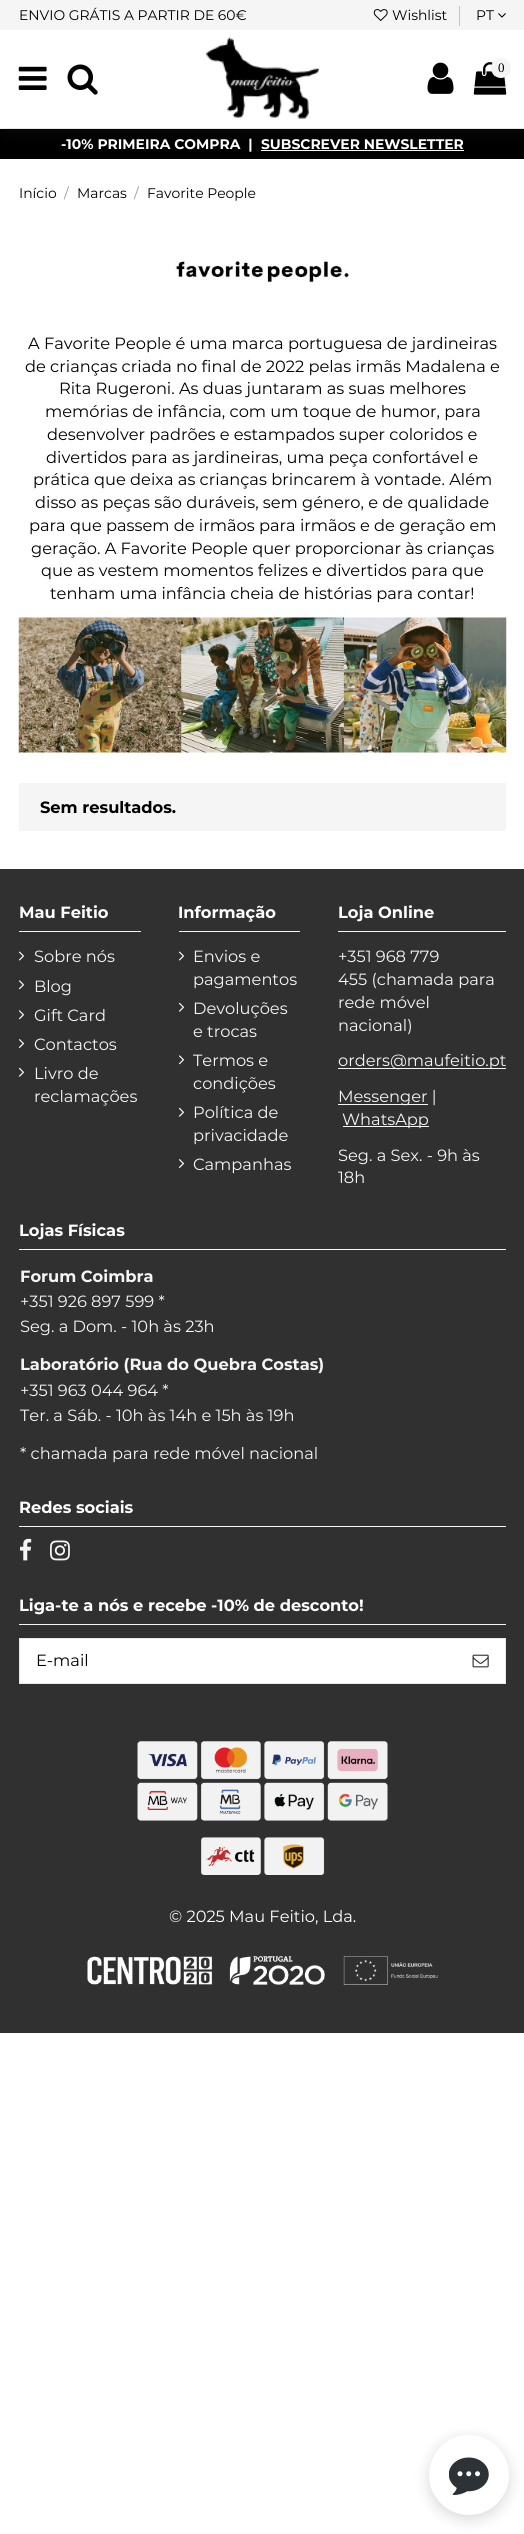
import math
import cairo


def use_color(cr, r, g, b):
  cr.set_source_rgb(r / 255, g / 255, b / 255)

def text(cr, x, y, s, family, size, color, bold=False, italic=False):
  cr.select_font_face(family, cairo.FONT_SLANT_ITALIC if italic else cairo.FONT_SLANT_NORMAL, cairo.FONT_WEIGHT_BOLD if bold else cairo.FONT_WEIGHT_NORMAL)
  cr.set_font_size(size)
  use_color(cr, *color)
  cr.move_to(x, y)
  cr.show_text(s)

def box(cr, x, y, w, h, *color):
  use_color(cr, *color)
  cr.rectangle(x, y, w, h)
  cr.fill()

def round_rect(cr, x, y, w, h, r):
  cr.new_sub_path()
  for i, (u, v) in enumerate([(x + w - r, y + h - r), (x + r, y + h - r), (x + r, y + r), (x + w - r, y + r)]):
    cr.arc(u, v, r, i * math.pi / 2, (i + 1) * math.pi / 2)
  cr.close_path()

def shadow(cr, x, y, w, h, r, blur, alpha):
  cr.push_group_with_content(cairo.CONTENT_ALPHA)
  cr.set_operator(cairo.OPERATOR_SOURCE)
  for i in range(15, -16, -2):
    e = blur * i / 6
    if min(w, h) + 2 * e > 0:
      cr.set_source_rgba(0, 0, 0, alpha * math.erfc((i - 1) / 8.5) / 2)
      round_rect(cr, x - e, y - e, w + 2 * e, h + 2 * e, max(0, min(r + e + blur * .6, min(w, h) / 2 + e)))
      cr.fill()
  cr.mask(cr.pop_group())

def picture(cr, path, x, y, w, h):
  cr.save()
  cr.set_source_surface(cairo.ImageSurface.create_from_png(path), x, y)
  cr.rectangle(x, y, w, h)
  cr.fill()
  cr.restore()

def draw(cr):
  use_color(cr, 255, 255, 255)
  cr.paint()
  box(cr, 0, 129, 524, 30, 0, 0, 0)
  box(cr, 261, 150, 203, 1, 255, 255, 255)
  use_color(cr, 61, 57, 57)
  shadow(cr, 6, 0, 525, 129, 0, 12.5, 0.09)
  box(cr, 0, 128, 524, 1, 245, 245, 245)
  use_color(cr, 61, 57, 57)
  shadow(cr, 6, 30, 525, 98, 0, 9.5, 0.09)
  shadow(cr, 6, 30, 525, 98, 0, 9.5, 0.09)
  box(cr, 0, 0, 524, 30, 245, 245, 245)
  picture(cr, "img_01.png", 373, 9, 15, 12)
  box(cr, 459, 6, 1, 20, 196, 196, 196)
  picture(cr, "img_02.png", 498, 13, 8, 5)
  box(cr, 0, 30, 524, 98, 255, 255, 255)
  picture(cr, "img_03.png", 18, 66, 29, 24)
  picture(cr, "img_04.png", 67, 64, 31, 31)
  picture(cr, "img_05.png", 206, 37, 113, 82)
  picture(cr, "img_06.png", 427, 62, 27, 32)
  picture(cr, "img_07.png", 473, 62, 34, 33)
  use_color(cr, 245, 245, 245)
  cr.arc(501, 68, 10, 0, 2 * math.pi)
  cr.fill()
  picture(cr, "img_08.png", 174, 260, 175, 24)
  picture(cr, "img_09.png", 18, 617, 489, 136)
  box(cr, 19, 783, 487, 48, 245, 245, 245)
  box(cr, 0, 869, 524, 1164, 48, 48, 48)
  box(cr, 19, 931, 122, 1, 245, 245, 245)
  picture(cr, "img_10.png", 18, 951, 7, 10)
  picture(cr, "img_11.png", 18, 980, 7, 10)
  picture(cr, "img_11.png", 18, 1010, 7, 10)
  picture(cr, "img_12.png", 18, 1039, 7, 9)
  picture(cr, "img_13.png", 18, 1067, 7, 10)
  box(cr, 179, 931, 121, 1, 245, 245, 245)
  picture(cr, "img_10.png", 178, 951, 7, 10)
  picture(cr, "img_13.png", 178, 1002, 7, 10)
  picture(cr, "img_11.png", 178, 1055, 7, 10)
  picture(cr, "img_13.png", 178, 1107, 7, 10)
  picture(cr, "img_12.png", 178, 1159, 7, 9)
  box(cr, 338, 931, 168, 1, 245, 245, 245)
  box(cr, 338, 1068, 168, 1, 245, 245, 245)
  box(cr, 338, 1104, 90, 1, 245, 245, 245)
  box(cr, 343, 1126, 86, 1, 245, 245, 245)
  box(cr, 19, 1249, 487, 1, 245, 245, 245)
  box(cr, 19, 1526, 487, 1, 245, 245, 245)
  picture(cr, "img_14.png", 20, 1538, 12, 23)
  picture(cr, "img_15.png", 50, 1540, 20, 21)
  box(cr, 19, 1624, 487, 1, 245, 245, 245)
  use_color(cr, 255, 255, 255)
  cr.rectangle(19.5, 1638.5, 486, 45)
  cr.fill_preserve()
  use_color(cr, 232, 232, 232)
  cr.set_line_width(1)
  cr.stroke()
  picture(cr, "img_16.png", 472, 1654, 17, 14)
  picture(cr, "img_17.png", 137, 1741, 251, 134)
  picture(cr, "img_18.png", 87, 1956, 351, 29)
  use_color(cr, 0, 0, 0)
  shadow(cr, 429, 2439, 80, 80, 40, 7.5, 0.15)
  use_color(cr, 255, 255, 255)
  cr.arc(469, 2475, 40, 0, 2 * math.pi)
  cr.fill()
  picture(cr, "img_19.png", 449, 2457, 40, 38)
  text(cr, 19, 20, "ENVIO GRÁTIS A PARTIR DE 60€", "Montserrat", 13.9, (0, 0, 0))
  text(cr, 392, 20, "Wishlist", "Montserrat", 13.9, (0, 0, 0))
  text(cr, 476, 20, "PT", "Montserrat", 13.9, (0, 0, 0))
  text(cr, 498, 72, "0", "Liberation Serif", 13, (0, 0, 0))
  text(cr, 61, 149, "-10% PRIMEIRA COMPRA  |", "Montserrat", 13.9, (255, 255, 255), bold=True)
  text(cr, 261, 149, "SUBSCREVER NEWSLETTER", "Montserrat", 13.9, (255, 255, 255), bold=True)
  text(cr, 19, 198, "Início", "Montserrat", 13.9, (0, 0, 0))
  text(cr, 64, 198, "/", "Montserrat", 13.9, (153, 153, 153))
  text(cr, 77, 198, "Marcas", "Montserrat", 13.9, (0, 0, 0))
  text(cr, 134, 198, "/", "Montserrat", 13.9, (153, 153, 153))
  text(cr, 147, 198, "Favorite People", "Montserrat", 13.9, (0, 0, 0))
  text(cr, 28, 349, "A Favorite People é uma marca portuguesa de jardineiras", "Montserrat", 16.25, (0, 0, 0))
  text(cr, 25, 372, "de crianças criada no final de 2022 pelas irmãs Madalena e", "Montserrat", 16.25, (0, 0, 0))
  text(cr, 59, 394, "Rita Rugeroni. As duas juntaram as suas melhores", "Montserrat", 16.25, (0, 0, 0))
  text(cr, 45, 417, "memórias de infância, com um toque de humor, para", "Montserrat", 16.25, (0, 0, 0))
  text(cr, 47, 440, "desenvolver padrões e estampados super coloridos e", "Montserrat", 16.25, (0, 0, 0))
  text(cr, 46, 463, "divertidos para as jardineiras, uma peça confortável e", "Montserrat", 16.25, (0, 0, 0))
  text(cr, 33, 485, "prática que deixa as crianças brincarem à vontade. Além", "Montserrat", 16.25, (0, 0, 0))
  text(cr, 35, 508, "disso as peças são duráveis, sem género, e de qualidade", "Montserrat", 16.25, (0, 0, 0))
  text(cr, 29, 531, "para que passem de irmãos para irmãos e de geração em", "Montserrat", 16.25, (0, 0, 0))
  text(cr, 31, 554, "geração. A Favorite People quer proporcionar às crianças", "Montserrat", 16.25, (0, 0, 0))
  text(cr, 41, 576, "que as vestem momentos felizes e divertidos para que", "Montserrat", 16.25, (0, 0, 0))
  text(cr, 50, 599, "tenham uma infância cheia de histórias para contar!", "Montserrat", 16.25, (0, 0, 0))
  text(cr, 40, 813, "Sem resultados.", "Montserrat", 16.25, (0, 0, 0), bold=True)
  text(cr, 19, 918, "Mau Feitio", "Montserrat", 16.25, (255, 255, 255), bold=True)
  text(cr, 34, 962, "Sobre nós", "Montserrat", 16.25, (245, 245, 245))
  text(cr, 34, 992, "Blog", "Montserrat", 16.25, (245, 245, 245))
  text(cr, 34, 1021, "Gift Card", "Montserrat", 16.25, (245, 245, 245))
  text(cr, 34, 1050, "Contactos", "Montserrat", 16.25, (245, 245, 245))
  text(cr, 34, 1079, "Livro de", "Montserrat", 16.25, (245, 245, 245))
  text(cr, 34, 1102, "reclamações", "Montserrat", 16.25, (245, 245, 245))
  text(cr, 178, 918, "Informação", "Montserrat", 16.25, (255, 255, 255), bold=True)
  text(cr, 193, 962, "Envios e", "Montserrat", 16.25, (245, 245, 245))
  text(cr, 193, 985, "pagamentos", "Montserrat", 16.25, (245, 245, 245))
  text(cr, 193, 1014, "Devoluções", "Montserrat", 16.25, (245, 245, 245))
  text(cr, 193, 1037, "e trocas", "Montserrat", 16.25, (245, 245, 245))
  text(cr, 193, 1066, "Termos e", "Montserrat", 16.25, (245, 245, 245))
  text(cr, 193, 1089, "condições", "Montserrat", 16.25, (245, 245, 245))
  text(cr, 193, 1118, "Política de", "Montserrat", 16.25, (245, 245, 245))
  text(cr, 193, 1141, "privacidade", "Montserrat", 16.25, (245, 245, 245))
  text(cr, 193, 1170, "Campanhas", "Montserrat", 16.25, (245, 245, 245))
  text(cr, 338, 918, "Loja Online", "Montserrat", 16.25, (255, 255, 255), bold=True)
  text(cr, 338, 962, "+351 968 779", "Montserrat", 16.25, (245, 245, 245))
  text(cr, 338, 985, "455 (chamada para", "Montserrat", 16.25, (245, 245, 245))
  text(cr, 338, 1008, "rede móvel", "Montserrat", 16.25, (245, 245, 245))
  text(cr, 338, 1031, "nacional)", "Montserrat", 16.25, (245, 245, 245))
  text(cr, 338, 1066, "orders@maufeitio.pt", "Montserrat", 16.25, (245, 245, 245))
  text(cr, 338, 1102, "Messenger |", "Montserrat", 16.25, (245, 245, 245))
  text(cr, 342, 1125, "WhatsApp", "Montserrat", 16.25, (245, 245, 245))
  text(cr, 338, 1161, "Seg. a Sex. - 9h às", "Montserrat", 16.25, (245, 245, 245))
  text(cr, 338, 1183, "18h", "Montserrat", 16.25, (245, 245, 245))
  text(cr, 19, 1236, "Lojas Físicas", "Montserrat", 16.25, (255, 255, 255), bold=True)
  text(cr, 20, 1282, "Forum Coimbra", "Montserrat", 16.25, (245, 245, 245), bold=True)
  text(cr, 20, 1307, "+351 926 897 599 *", "Montserrat", 16.25, (245, 245, 245))
  text(cr, 20, 1332, "Seg. a Dom. - 10h às 23h", "Montserrat", 16.25, (245, 245, 245))
  text(cr, 20, 1370, "Laboratório (Rua do Quebra Costas)", "Montserrat", 16.25, (245, 245, 245), bold=True)
  text(cr, 20, 1396, "+351 963 044 964 *", "Montserrat", 16.25, (245, 245, 245))
  text(cr, 20, 1421, "Ter. a Sáb. - 10h às 14h e 15h às 19h", "Montserrat", 16.25, (245, 245, 245))
  text(cr, 20, 1459, "* chamada para rede móvel nacional", "Montserrat", 16.25, (245, 245, 245))
  text(cr, 19, 1513, "Redes sociais", "Montserrat", 16.25, (255, 255, 255), bold=True)
  text(cr, 19, 1611, "Liga-te a nós e recebe -10% de desconto!", "Montserrat", 16.25, (255, 255, 255), bold=True)
  text(cr, 36, 1666, "E-mail", "Montserrat", 16.25, (0, 0, 0))
  text(cr, 169, 1922, "© 2025 Mau Feitio, Lda.", "Montserrat", 16.25, (255, 255, 255))


surface = cairo.ImageSurface(cairo.FORMAT_RGB24, 524, 2534)
cr = cairo.Context(surface)
options = cairo.FontOptions()
options.set_hint_metrics(cairo.HINT_METRICS_OFF)
options.set_hint_style(cairo.HINT_STYLE_NONE)
cr.set_font_options(options)
cr.set_miter_limit(4)
draw(cr)
surface.write_to_png("out.png")
